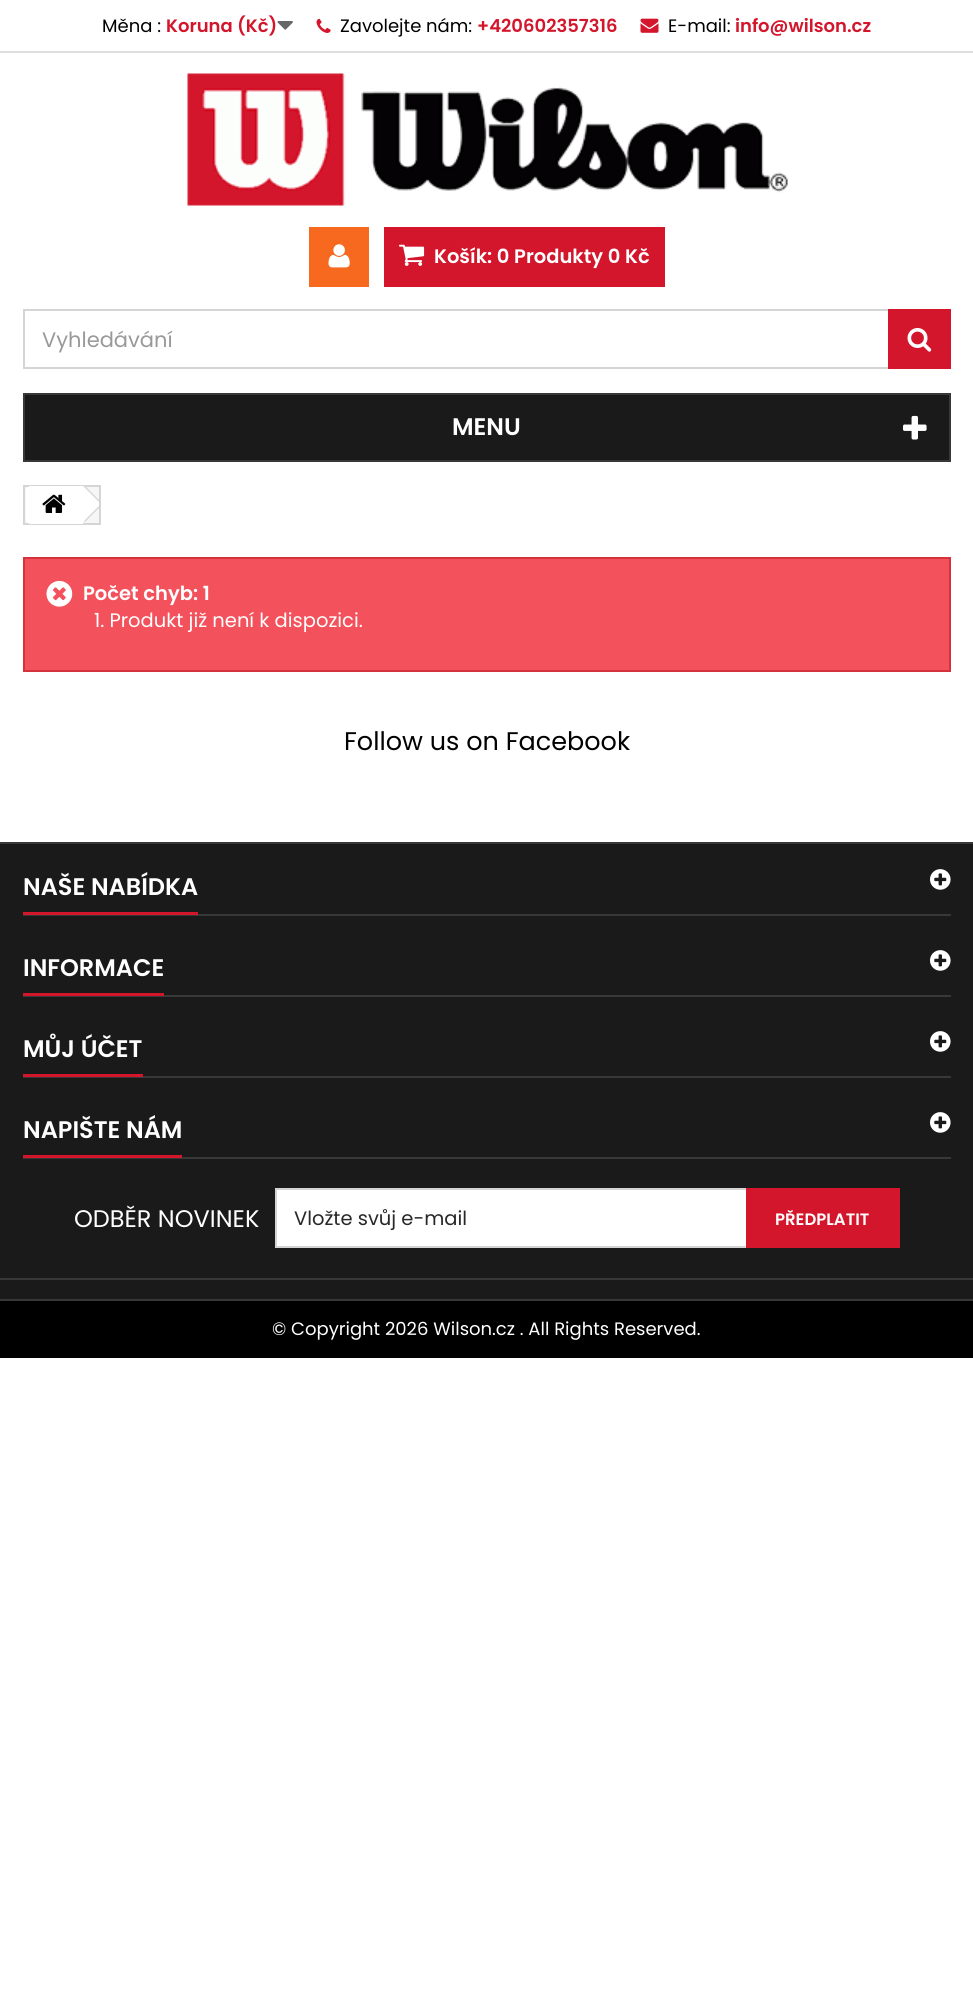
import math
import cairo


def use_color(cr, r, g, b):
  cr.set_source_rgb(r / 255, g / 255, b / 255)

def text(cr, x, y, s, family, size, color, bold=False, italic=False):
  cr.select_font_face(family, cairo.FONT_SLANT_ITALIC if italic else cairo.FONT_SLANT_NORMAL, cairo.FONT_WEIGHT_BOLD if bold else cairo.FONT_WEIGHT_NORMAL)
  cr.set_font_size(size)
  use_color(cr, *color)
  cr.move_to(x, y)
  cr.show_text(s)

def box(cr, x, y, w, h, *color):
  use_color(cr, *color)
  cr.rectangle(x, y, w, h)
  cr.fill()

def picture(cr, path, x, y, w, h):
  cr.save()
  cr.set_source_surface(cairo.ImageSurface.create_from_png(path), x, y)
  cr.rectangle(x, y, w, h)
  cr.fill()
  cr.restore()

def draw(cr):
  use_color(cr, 255, 255, 255)
  cr.paint()
  box(cr, 0, 51, 973, 2, 222, 222, 222)
  picture(cr, "img_01.png", 277, 21, 16, 9)
  picture(cr, "img_02.png", 316, 18, 15, 15)
  picture(cr, "img_03.png", 640, 18, 19, 15)
  picture(cr, "img_04.png", 187, 73, 601, 133)
  box(cr, 309, 227, 60, 60, 246, 105, 30)
  picture(cr, "img_05.png", 328, 244, 22, 24)
  box(cr, 384, 227, 281, 60, 212, 22, 44)
  picture(cr, "img_06.png", 399, 244, 26, 22)
  cr.rectangle(24, 310, 926, 58)
  use_color(cr, 214, 212, 212)
  cr.stroke()
  box(cr, 888, 309, 63, 60, 212, 22, 44)
  picture(cr, "img_07.png", 907, 328, 25, 24)
  use_color(cr, 27, 26, 27)
  cr.rectangle(24, 394, 926, 67)
  cr.fill_preserve()
  use_color(cr, 56, 56, 56)
  cr.stroke()
  picture(cr, "img_08.png", 903, 415, 24, 25)
  use_color(cr, 246, 246, 246)
  cr.rectangle(24, 486, 76, 38)
  cr.fill_preserve()
  use_color(cr, 214, 212, 212)
  cr.stroke()
  use_color(cr, 255, 255, 255)
  cr.new_path()
  cr.move_to(31, 486)
  cr.line_to(83, 486)
  cr.line_to(83, 524)
  cr.line_to(31, 524)
  cr.curve_to(28, 524, 26, 522, 26, 519)
  cr.line_to(26, 491)
  cr.curve_to(26, 488, 28, 486, 31, 486)
  cr.close_path()
  cr.fill()
  picture(cr, "img_09.png", 42, 494, 24, 19)
  cr.save()
  cr.rectangle(24, 486, 75, 38)
  cr.clip()
  cr.new_path()
  cr.move_to(86, 487)
  cr.line_to(101, 502)
  cr.curve_to(102, 503, 102, 505, 101, 506)
  cr.line_to(86, 521)
  cr.curve_to(85, 522, 83, 522, 82, 521)
  cr.line_to(67, 506)
  cr.curve_to(66, 505, 66, 503, 67, 502)
  cr.line_to(82, 487)
  cr.curve_to(83, 486, 85, 486, 86, 487)
  cr.close_path()
  cr.fill()
  use_color(cr, 214, 212, 212)
  cr.new_path()
  cr.move_to(85, 486)
  cr.line_to(102, 503)
  cr.line_to(101, 504)
  cr.line_to(84, 487)
  cr.close_path()
  cr.move_to(101, 504)
  cr.line_to(102, 505)
  cr.line_to(85, 522)
  cr.line_to(84, 521)
  cr.close_path()
  cr.fill()
  cr.restore()
  use_color(cr, 243, 81, 92)
  cr.rectangle(24, 558, 926, 113)
  cr.fill_preserve()
  use_color(cr, 212, 50, 61)
  cr.stroke()
  picture(cr, "img_10.png", 46, 580, 27, 27)
  box(cr, 0, 844, 973, 455, 27, 26, 27)
  box(cr, 0, 842, 973, 2, 56, 56, 56)
  box(cr, 23, 914, 928, 2, 56, 56, 56)
  box(cr, 23, 912, 175, 3, 212, 22, 44)
  picture(cr, "img_11.png", 930, 869, 21, 21)
  box(cr, 23, 995, 928, 2, 56, 56, 56)
  box(cr, 23, 993, 141, 3, 212, 22, 44)
  picture(cr, "img_11.png", 930, 950, 21, 21)
  box(cr, 23, 1076, 928, 2, 56, 56, 56)
  box(cr, 23, 1074, 120, 3, 212, 22, 44)
  picture(cr, "img_11.png", 930, 1031, 21, 21)
  box(cr, 23, 1157, 928, 2, 56, 56, 56)
  box(cr, 23, 1155, 159, 3, 212, 22, 44)
  picture(cr, "img_11.png", 930, 1112, 21, 21)
  box(cr, 277, 1190, 469, 56, 255, 255, 255)
  cr.rectangle(276, 1189, 523, 58)
  use_color(cr, 214, 212, 212)
  cr.stroke()
  box(cr, 746, 1188, 154, 60, 212, 22, 44)
  box(cr, 0, 1278, 973, 2, 56, 56, 56)
  box(cr, 0, 1301, 973, 57, 0, 0, 0)
  box(cr, 0, 1299, 973, 2, 56, 56, 56)
  text(cr, 102, 32, "Měna :", "Poppins", 18, (0, 0, 0))
  text(cr, 166, 32, "Koruna (Kč)", "Poppins SemiBold", 18, (212, 22, 44))
  text(cr, 340, 32, "Zavolejte nám:", "Poppins", 18, (0, 0, 0))
  text(cr, 477, 32, "+420602357316", "Poppins SemiBold", 18, (212, 22, 44))
  text(cr, 668, 32, "E-mail:", "Poppins", 18, (0, 0, 0))
  text(cr, 735, 32, "info@wilson.cz", "Poppins SemiBold", 18, (212, 22, 44))
  text(cr, 434, 263, "Košík: 0 Produkty 0 Kč", "Poppins SemiBold", 19.5, (255, 255, 255))
  text(cr, 42, 347, "Vyhledávání", "Poppins", 21, (153, 153, 153))
  text(cr, 452, 435, "MENU", "Poppins SemiBold", 24, (255, 255, 255))
  text(cr, 83, 600, "Počet chyb: 1", "Poppins SemiBold", 19.5, (255, 255, 255))
  text(cr, 94, 627, "1. Produkt již není k dispozici.", "Poppins", 19.5, (255, 255, 255))
  text(cr, 344, 750, "Follow us on Facebook", "Poppins", 25.5, (0, 0, 0))
  text(cr, 23, 895, "NAŠE NABÍDKA", "Poppins SemiBold", 24, (255, 255, 255))
  text(cr, 23, 976, "INFORMACE", "Poppins SemiBold", 24, (255, 255, 255))
  text(cr, 23, 1057, "MŮJ ÚČET", "Poppins SemiBold", 24, (255, 255, 255))
  text(cr, 23, 1138, "NAPIŠTE NÁM", "Poppins SemiBold", 24, (255, 255, 255))
  text(cr, 74, 1227, "ODBĚR NOVINEK", "Poppins", 24, (255, 255, 255))
  text(cr, 294, 1225, "Vložte svůj e-mail", "Poppins", 19.5, (40, 40, 40))
  text(cr, 775, 1225, "PŘEDPLATIT", "Poppins SemiBold", 16.5, (255, 255, 255))
  text(cr, 272, 1335, "© Copyright 2026 Wilson.cz . All Rights Reserved.", "Poppins", 18, (255, 255, 255))


surface = cairo.ImageSurface(cairo.FORMAT_RGB24, 973, 1995)
cr = cairo.Context(surface)
options = cairo.FontOptions()
options.set_hint_metrics(cairo.HINT_METRICS_OFF)
options.set_hint_style(cairo.HINT_STYLE_NONE)
cr.set_font_options(options)
cr.set_miter_limit(4)
draw(cr)
surface.write_to_png("out.png")
